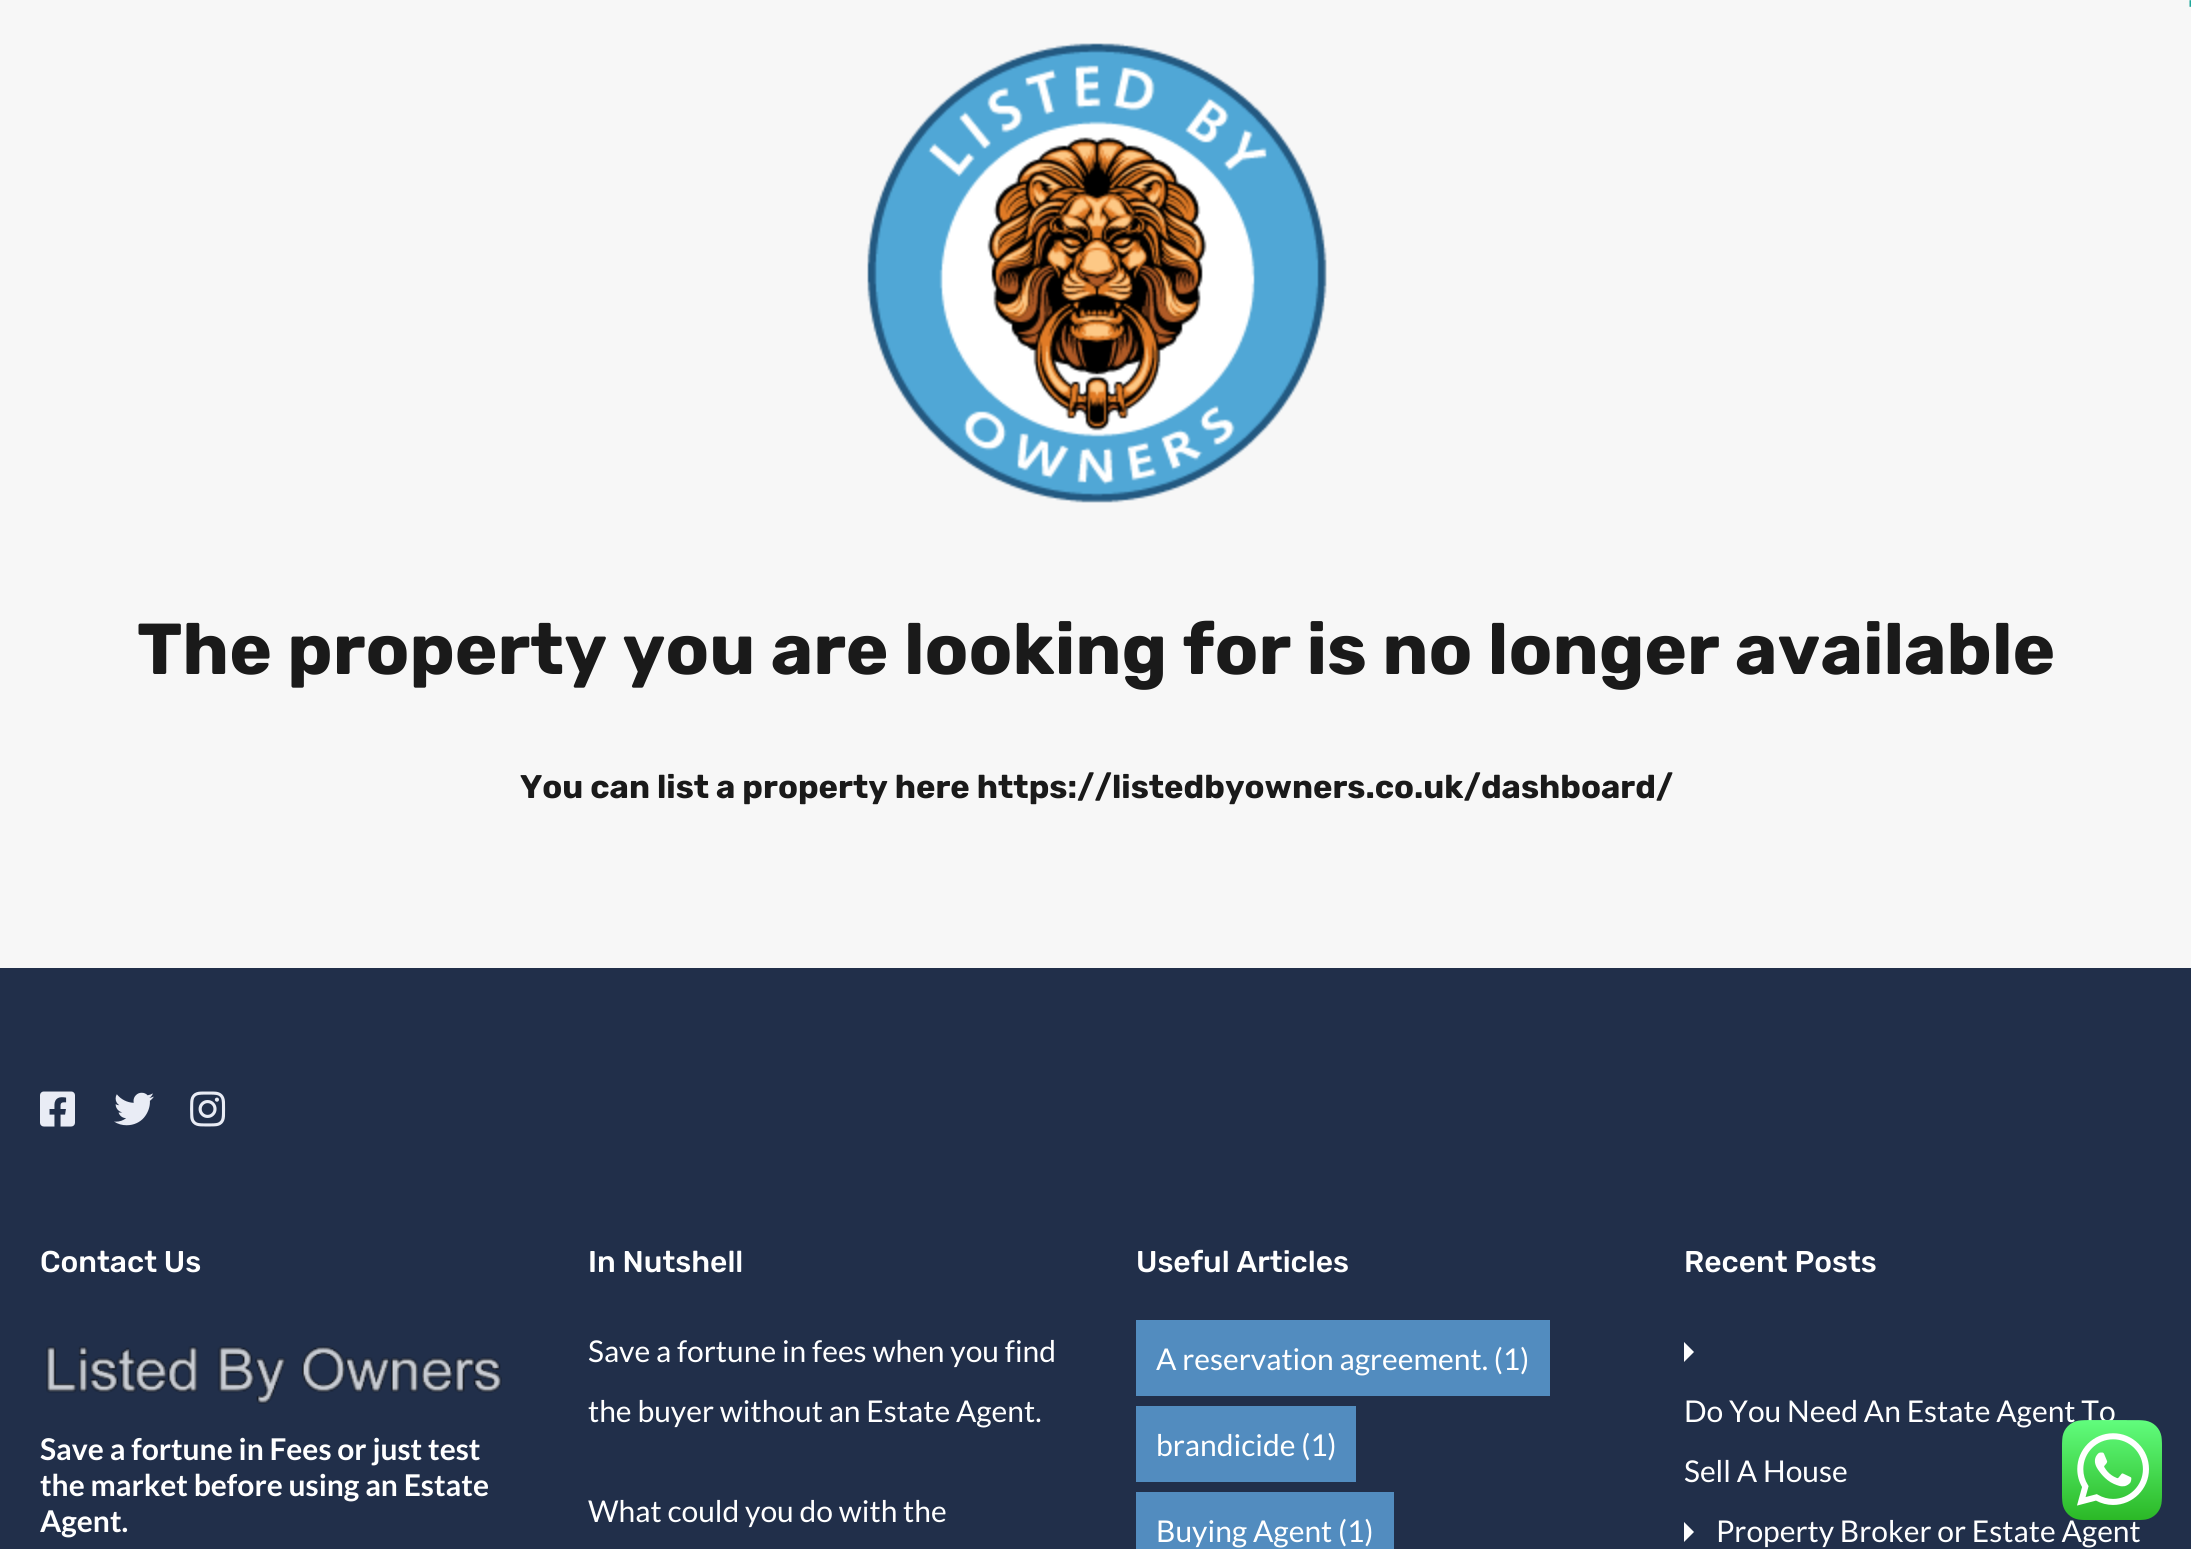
import math
import cairo


def use_color(cr, r, g, b):
  cr.set_source_rgb(r / 255, g / 255, b / 255)

def text(cr, x, y, s, family, size, color, bold=False, italic=False):
  cr.select_font_face(family, cairo.FONT_SLANT_ITALIC if italic else cairo.FONT_SLANT_NORMAL, cairo.FONT_WEIGHT_BOLD if bold else cairo.FONT_WEIGHT_NORMAL)
  cr.set_font_size(size)
  use_color(cr, *color)
  cr.move_to(x, y)
  cr.show_text(s)

def box(cr, x, y, w, h, *color):
  use_color(cr, *color)
  cr.rectangle(x, y, w, h)
  cr.fill()

def picture(cr, path, x, y, w, h):
  cr.save()
  cr.set_source_surface(cairo.ImageSurface.create_from_png(path), x, y)
  cr.rectangle(x, y, w, h)
  cr.fill()
  cr.restore()

def draw(cr):
  use_color(cr, 247, 247, 247)
  cr.paint()
  cr.new_path()
  cr.move_to(2189.5, 3.5)
  cr.line_to(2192, 3.5)
  use_color(cr, 30, 166, 154)
  cr.set_line_width(6.6)
  cr.stroke()
  picture(cr, "img_01.png", 867, 43, 460, 460)
  box(cr, 0, 968, 2191, 581, 33, 47, 74)
  picture(cr, "img_02.png", 40, 1091, 35, 36)
  picture(cr, "img_03.png", 114, 1092, 40, 34)
  picture(cr, "img_04.png", 190, 1091, 36, 36)
  picture(cr, "img_05.png", 46, 1346, 456, 58)
  box(cr, 1136, 1320, 414, 76, 82, 140, 191)
  box(cr, 1136, 1406, 220, 76, 82, 140, 191)
  box(cr, 1136, 1492, 258, 57, 82, 140, 191)
  use_color(cr, 255, 255, 255)
  cr.new_path()
  cr.move_to(1684, 1362)
  cr.line_to(1684, 1342)
  cr.line_to(1694, 1352)
  cr.close_path()
  cr.fill()
  cr.new_path()
  cr.move_to(1684, 1542)
  cr.line_to(1684, 1522)
  cr.line_to(1694, 1532)
  cr.close_path()
  cr.fill()
  text(cr, 137, 674, "The property you are looking for is no longer available", "Rubik", 72, (26, 26, 26), bold=True)
  text(cr, 520, 798, "You can list a property here https://listedbyowners.co.uk/dashboard/", "Rubik", 32.75, (26, 26, 26), bold=True)
  text(cr, 40, 1272, "Contact Us", "Rubik Medium", 30, (255, 255, 255))
  text(cr, 40, 1460, "Save a fortune in Fees or just test", "Lato", 30, (255, 255, 255), bold=True)
  text(cr, 40, 1496, "the market before using an Estate", "Lato", 30, (255, 255, 255), bold=True)
  text(cr, 40, 1532, "Agent.", "Lato", 30, (255, 255, 255), bold=True)
  text(cr, 588, 1272, "In Nutshell", "Rubik Medium", 30, (255, 255, 255))
  text(cr, 588, 1362, "Save a fortune in fees when you find", "Lato", 30, (255, 255, 255))
  text(cr, 588, 1422, "the buyer without an Estate Agent.", "Lato", 30, (255, 255, 255))
  text(cr, 588, 1522, "What could you do with the", "Lato", 30, (255, 255, 255))
  text(cr, 1136, 1272, "Useful Articles", "Rubik Medium", 30, (255, 255, 255))
  text(cr, 1156, 1370, "A reservation agreement. (1)", "Lato", 30, (255, 255, 255))
  text(cr, 1156, 1456, "brandicide (1)", "Lato", 30, (255, 255, 255))
  text(cr, 1156, 1542, "Buying Agent (1)", "Lato", 30, (255, 255, 255))
  text(cr, 1684, 1272, "Recent Posts", "Rubik Medium", 30, (255, 255, 255))
  text(cr, 1684, 1422, "Do You Need An Estate Agent To", "Lato", 30, (255, 255, 255))
  text(cr, 1684, 1482, "Sell A House", "Lato", 30, (255, 255, 255))
  text(cr, 1716, 1542, "Property Broker or Estate Agent", "Lato", 30, (255, 255, 255))
  picture(cr, "img_06.png", 2062, 1420, 100, 100)


surface = cairo.ImageSurface(cairo.FORMAT_RGB24, 2191, 1549)
cr = cairo.Context(surface)
options = cairo.FontOptions()
options.set_hint_metrics(cairo.HINT_METRICS_OFF)
options.set_hint_style(cairo.HINT_STYLE_NONE)
cr.set_font_options(options)
cr.set_miter_limit(4)
draw(cr)
surface.write_to_png("out.png")
